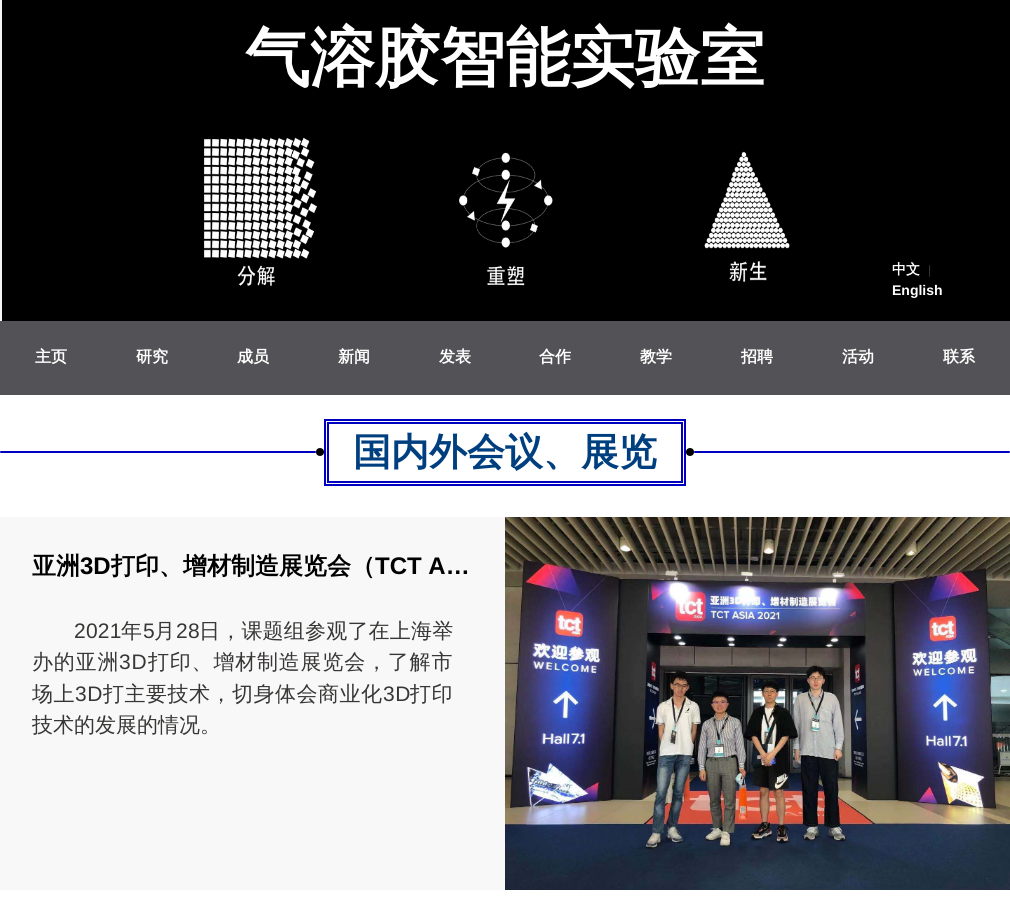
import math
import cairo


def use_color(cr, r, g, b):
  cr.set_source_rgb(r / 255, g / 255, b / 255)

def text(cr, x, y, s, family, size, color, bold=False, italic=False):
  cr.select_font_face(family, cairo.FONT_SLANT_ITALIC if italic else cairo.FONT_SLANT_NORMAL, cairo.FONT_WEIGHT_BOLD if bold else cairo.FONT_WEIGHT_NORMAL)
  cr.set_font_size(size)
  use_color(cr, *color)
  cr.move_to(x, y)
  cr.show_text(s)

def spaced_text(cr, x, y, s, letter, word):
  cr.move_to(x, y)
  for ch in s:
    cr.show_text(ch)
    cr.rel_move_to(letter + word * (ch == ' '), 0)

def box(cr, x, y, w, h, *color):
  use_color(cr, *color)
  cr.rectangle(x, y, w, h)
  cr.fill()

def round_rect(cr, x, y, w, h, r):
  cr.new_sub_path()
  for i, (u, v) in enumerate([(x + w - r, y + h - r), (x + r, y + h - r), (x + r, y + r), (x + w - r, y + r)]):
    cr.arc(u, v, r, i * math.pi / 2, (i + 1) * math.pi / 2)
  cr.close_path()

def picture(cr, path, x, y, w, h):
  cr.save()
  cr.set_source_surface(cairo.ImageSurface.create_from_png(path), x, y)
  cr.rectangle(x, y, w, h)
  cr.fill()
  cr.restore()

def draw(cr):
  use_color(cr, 255, 255, 255)
  cr.paint()
  box(cr, 0, 0, 2, 321, 245, 245, 245)
  box(cr, 2, 0, 1008, 321, 0, 0, 0)
  picture(cr, "img_01.png", 204, 137, 586, 149)
  box(cr, 0, 321, 1010, 74, 83, 82, 86)
  use_color(cr, 0, 0, 191)
  round_rect(cr, 0, 451, 316, 2, 1)
  cr.fill()
  use_color(cr, 0, 0, 0)
  cr.arc(320, 452, 4, 0, 2 * math.pi)
  cr.fill()
  cr.rectangle(325, 420, 360, 65)
  use_color(cr, 0, 0, 191)
  cr.stroke()
  cr.rectangle(328, 423, 354, 59)
  cr.stroke()
  use_color(cr, 0, 0, 0)
  cr.arc(690, 452, 4, 0, 2 * math.pi)
  cr.fill()
  use_color(cr, 0, 0, 191)
  round_rect(cr, 694, 451, 316, 2, 1)
  cr.fill()
  box(cr, 0, 517, 505, 373, 248, 248, 248)
  picture(cr, "img_02.png", 505, 517, 505, 373)
  text(cr, 245, 80, "气溶胶智能实验室", "WenQuanYi Zen Hei", 65, (255, 255, 255), bold=True)
  text(cr, 892, 274, "中文", "WenQuanYi Zen Hei", 14, (255, 255, 255), bold=True)
  text(cr, 928, 274, "|", "Liberation Sans", 12, (56, 55, 54))
  text(cr, 892, 295, "English", "Liberation Sans", 14, (255, 255, 255), bold=True)
  text(cr, 35, 362, "主页", "WenQuanYi Zen Hei", 16, (255, 255, 255), bold=True)
  text(cr, 136, 362, "研究", "WenQuanYi Zen Hei", 16, (255, 255, 255), bold=True)
  text(cr, 237, 362, "成员", "WenQuanYi Zen Hei", 16, (255, 255, 255), bold=True)
  text(cr, 338, 362, "新闻", "WenQuanYi Zen Hei", 16, (255, 255, 255), bold=True)
  text(cr, 439, 362, "发表", "WenQuanYi Zen Hei", 16, (255, 255, 255), bold=True)
  text(cr, 539, 362, "合作", "WenQuanYi Zen Hei", 16, (255, 255, 255), bold=True)
  text(cr, 640, 362, "教学", "WenQuanYi Zen Hei", 16, (255, 255, 255), bold=True)
  text(cr, 741, 362, "招聘", "WenQuanYi Zen Hei", 16, (255, 255, 255), bold=True)
  text(cr, 842, 362, "活动", "WenQuanYi Zen Hei", 16, (255, 255, 255), bold=True)
  text(cr, 943, 362, "联系", "WenQuanYi Zen Hei", 16, (255, 255, 255), bold=True)
  text(cr, 353, 465, "国内外会议、展览", "WenQuanYi Zen Hei", 38, (0, 63, 127), bold=True)
  text(cr, 32, 574, "亚洲", "WenQuanYi Zen Hei", 24, (0, 0, 0), bold=True)
  text(cr, 80, 574, "3D", "Liberation Sans", 24, (0, 0, 0), bold=True)
  text(cr, 111, 574, "打印、增材制造展览会（", "WenQuanYi Zen Hei", 24, (0, 0, 0), bold=True)
  text(cr, 375, 574, "TCT A…", "Liberation Sans", 24, (0, 0, 0), bold=True)
  cr.select_font_face("Liberation Sans")
  cr.set_font_size(21)
  use_color(cr, 56, 55, 54)
  spaced_text(cr, 74, 638, "2021", 0.2, 0)
  cr.select_font_face("WenQuanYi Zen Hei Medium")
  spaced_text(cr, 121, 638, "年", 0.2, 0)
  cr.select_font_face("Liberation Sans")
  spaced_text(cr, 143, 638, "5", 0.2, 0)
  cr.select_font_face("WenQuanYi Zen Hei Medium")
  spaced_text(cr, 154, 638, "月", 0.2, 0)
  cr.select_font_face("Liberation Sans")
  spaced_text(cr, 176, 638, "28", 0.2, 0)
  cr.select_font_face("WenQuanYi Zen Hei Medium")
  spaced_text(cr, 199, 638, "日，课题组参观了在上海举", 0.2, 0)
  spaced_text(cr, 32, 669, "办的亚洲", 0.8, 0)
  cr.select_font_face("Liberation Sans")
  spaced_text(cr, 119, 669, "3D", 0.8, 0)
  cr.select_font_face("WenQuanYi Zen Hei Medium")
  spaced_text(cr, 148, 669, "打印、增材制造展览会，了解市", 0.8, 0)
  spaced_text(cr, 32, 701, "场上", 0.5, 0)
  cr.select_font_face("Liberation Sans")
  spaced_text(cr, 75, 701, "3D", 0.5, 0)
  cr.select_font_face("WenQuanYi Zen Hei Medium")
  spaced_text(cr, 103, 701, "打主要技术，切身体会商业化", 0.5, 0)
  cr.select_font_face("Liberation Sans")
  spaced_text(cr, 383, 701, "3D", 0.5, 0)
  cr.select_font_face("WenQuanYi Zen Hei Medium")
  spaced_text(cr, 410, 701, "打印", 0.5, 0)
  text(cr, 32, 732, "技术的发展的情况。", "WenQuanYi Zen Hei Medium", 21, (56, 55, 54))


surface = cairo.ImageSurface(cairo.FORMAT_RGB24, 1010, 910)
cr = cairo.Context(surface)
options = cairo.FontOptions()
options.set_hint_metrics(cairo.HINT_METRICS_OFF)
options.set_hint_style(cairo.HINT_STYLE_NONE)
cr.set_font_options(options)
cr.set_miter_limit(4)
draw(cr)
surface.write_to_png("out.png")
